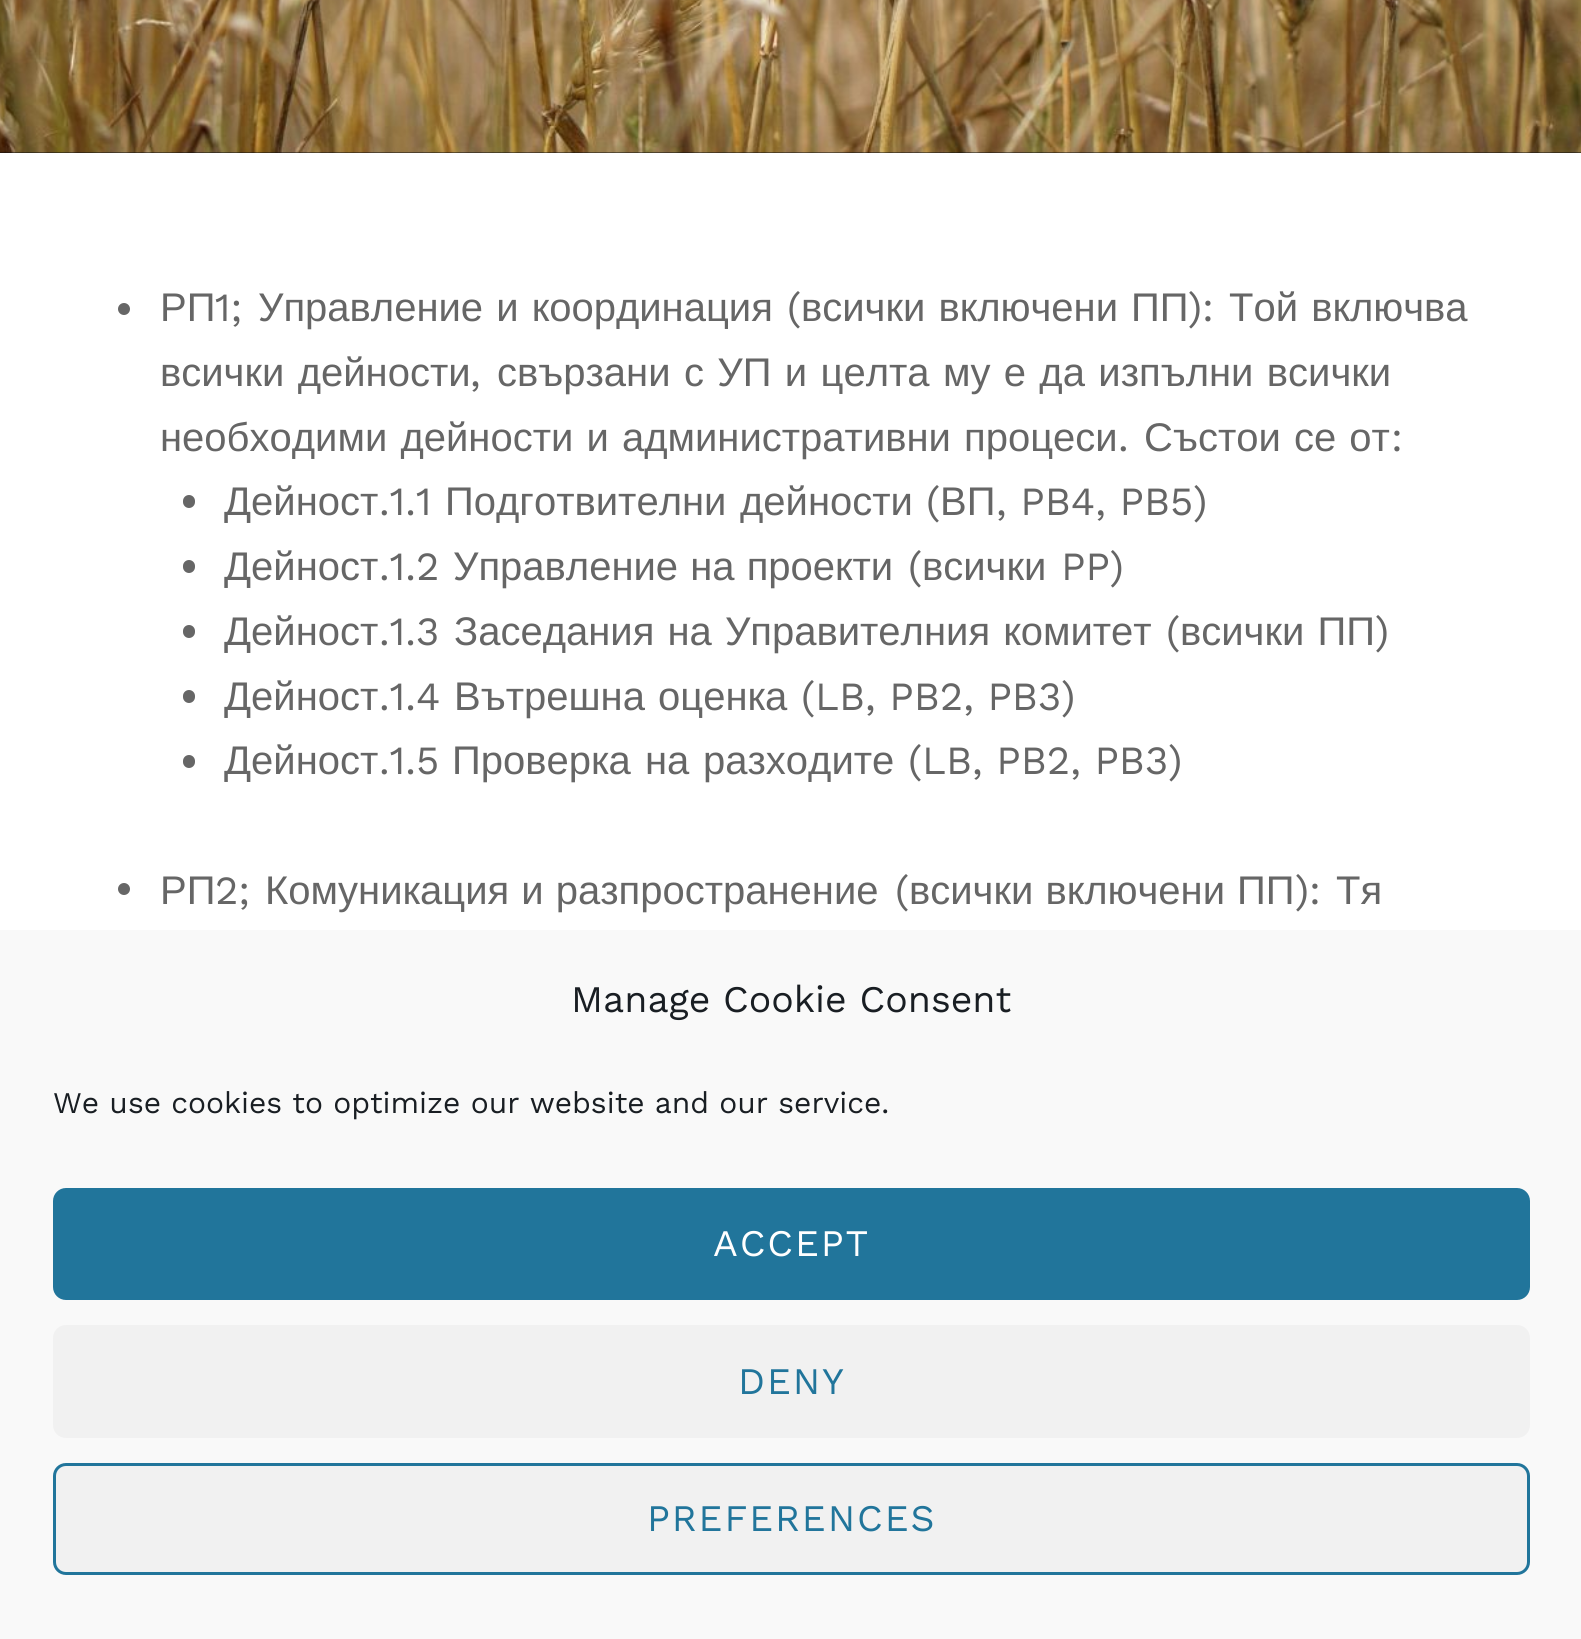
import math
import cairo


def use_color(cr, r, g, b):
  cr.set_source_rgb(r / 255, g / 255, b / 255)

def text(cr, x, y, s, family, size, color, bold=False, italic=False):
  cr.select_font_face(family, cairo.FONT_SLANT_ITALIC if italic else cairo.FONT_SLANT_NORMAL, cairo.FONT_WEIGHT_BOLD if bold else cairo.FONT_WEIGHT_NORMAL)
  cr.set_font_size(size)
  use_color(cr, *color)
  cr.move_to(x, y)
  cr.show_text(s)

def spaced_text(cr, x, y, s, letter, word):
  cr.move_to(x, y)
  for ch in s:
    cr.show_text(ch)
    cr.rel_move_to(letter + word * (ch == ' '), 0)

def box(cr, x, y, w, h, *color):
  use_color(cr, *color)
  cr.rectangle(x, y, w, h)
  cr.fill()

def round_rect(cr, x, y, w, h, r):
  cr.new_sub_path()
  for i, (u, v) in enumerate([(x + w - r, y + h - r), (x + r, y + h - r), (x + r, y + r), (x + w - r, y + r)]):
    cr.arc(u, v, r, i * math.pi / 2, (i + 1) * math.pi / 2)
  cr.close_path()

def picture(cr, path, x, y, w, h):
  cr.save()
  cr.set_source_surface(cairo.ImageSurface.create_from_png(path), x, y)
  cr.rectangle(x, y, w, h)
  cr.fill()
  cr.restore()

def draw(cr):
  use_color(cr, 255, 255, 255)
  cr.paint()
  box(cr, 0, 152, 1581, 1, 17, 17, 17)
  picture(cr, "img_01.png", 0, 0, 1581, 153)
  use_color(cr, 102, 102, 102)
  cr.arc(124, 309, 6, 0, 2 * math.pi)
  cr.fill()
  round_rect(cr, 183, 495, 12, 13, 6)
  cr.fill()
  round_rect(cr, 183, 560, 12, 13, 6)
  cr.fill()
  round_rect(cr, 183, 625, 12, 13, 6)
  cr.fill()
  round_rect(cr, 183, 690, 12, 13, 6)
  cr.fill()
  round_rect(cr, 183, 755, 12, 13, 6)
  cr.fill()
  cr.arc(124, 889, 6, 0, 2 * math.pi)
  cr.fill()
  box(cr, 0, 930, 1581, 709, 249, 249, 249)
  use_color(cr, 33, 117, 155)
  round_rect(cr, 54.5, 1189.5, 1474, 109, 11.5)
  cr.fill_preserve()
  cr.set_line_width(3)
  cr.stroke()
  use_color(cr, 241, 241, 241)
  round_rect(cr, 53, 1325, 1477, 113, 13)
  cr.fill()
  round_rect(cr, 54.5, 1464.5, 1474, 109, 11.5)
  cr.fill_preserve()
  use_color(cr, 33, 117, 155)
  cr.stroke()
  text(cr, 160, 321, "РП", "Liberation Sans", 40, (102, 102, 102))
  text(cr, 215, 321, "1;", "Work Sans", 40, (102, 102, 102))
  cr.select_font_face("Liberation Sans")
  spaced_text(cr, 258, 321, "Управление и координация", 0, 2)
  text(cr, 787, 321, "(", "Work Sans", 40, (102, 102, 102))
  cr.select_font_face("Liberation Sans")
  spaced_text(cr, 801, 321, "всички включени ПП", 0, 2)
  text(cr, 1188, 321, "):", "Work Sans", 40, (102, 102, 102))
  cr.select_font_face("Liberation Sans")
  spaced_text(cr, 1229, 321, "Той включва", 0, 2)
  spaced_text(cr, 160, 386, "всички дейности", 0, 2.25)
  text(cr, 470, 386, ",", "Work Sans", 40, (102, 102, 102))
  cr.select_font_face("Liberation Sans")
  spaced_text(cr, 497, 386, "свързани с УП и целта му е да изпълни всички", 0, 2.25)
  spaced_text(cr, 160, 451, "необходими дейности и административни процеси", 0, 2)
  text(cr, 1118, 451, ".", "Work Sans", 40, (102, 102, 102))
  cr.select_font_face("Liberation Sans")
  spaced_text(cr, 1144, 451, "Състои се от", 0, 2)
  text(cr, 1391, 451, ":", "Work Sans", 40, (102, 102, 102))
  text(cr, 224, 515, "Дейност", "Liberation Sans", 40, (102, 102, 102))
  text(cr, 379, 515, ".1.1", "Work Sans", 40, (102, 102, 102))
  text(cr, 445, 515, "Подготвителни", "Liberation Sans", 40, (102, 102, 102))
  text(cr, 740, 515, "дейности", "Liberation Sans", 40, (102, 102, 102))
  text(cr, 926, 515, "(", "Work Sans", 40, (102, 102, 102))
  text(cr, 940, 515, "ВП", "Liberation Sans", 40, (102, 102, 102))
  text(cr, 996, 515, ", PB4, PB5)", "Work Sans", 40, (102, 102, 102))
  text(cr, 224, 580, "Дейност", "Liberation Sans", 40, (102, 102, 102))
  text(cr, 379, 580, ".1.2", "Work Sans", 40, (102, 102, 102))
  cr.select_font_face("Liberation Sans")
  spaced_text(cr, 453, 580, "Управление на проекти", 0, 1)
  text(cr, 908, 580, "(", "Work Sans", 40, (102, 102, 102))
  text(cr, 922, 580, "всички", "Liberation Sans", 40, (102, 102, 102))
  text(cr, 1061, 580, "PP)", "Work Sans", 40, (102, 102, 102))
  text(cr, 224, 645, "Дейност", "Liberation Sans", 40, (102, 102, 102))
  text(cr, 379, 645, ".1.3", "Work Sans", 40, (102, 102, 102))
  cr.select_font_face("Liberation Sans")
  spaced_text(cr, 454, 645, "Заседания на Управителния комитет", 0, 2)
  text(cr, 1166, 645, "(", "Work Sans", 40, (102, 102, 102))
  cr.select_font_face("Liberation Sans")
  spaced_text(cr, 1180, 645, "всички ПП", 0, 2)
  text(cr, 1375, 645, ")", "Work Sans", 40, (102, 102, 102))
  text(cr, 224, 710, "Дейност", "Liberation Sans", 40, (102, 102, 102))
  text(cr, 379, 710, ".1.4", "Work Sans", 40, (102, 102, 102))
  text(cr, 454, 710, "Вътрешна", "Liberation Sans", 40, (102, 102, 102))
  text(cr, 658, 710, "оценка", "Liberation Sans", 40, (102, 102, 102))
  text(cr, 801, 710, "(LB, PB2, PB3)", "Work Sans", 40, (102, 102, 102))
  text(cr, 224, 774, "Дейност", "Liberation Sans", 40, (102, 102, 102))
  text(cr, 379, 774, ".1.5", "Work Sans", 40, (102, 102, 102))
  text(cr, 452, 774, "Проверка", "Liberation Sans", 40, (102, 102, 102))
  text(cr, 645, 774, "на", "Liberation Sans", 40, (102, 102, 102))
  text(cr, 703, 774, "разходите", "Liberation Sans", 40, (102, 102, 102))
  text(cr, 908, 774, "(LB, PB2, PB3)", "Work Sans", 40, (102, 102, 102))
  text(cr, 160, 904, "РП", "Liberation Sans", 40, (102, 102, 102))
  text(cr, 215, 904, "2;", "Work Sans", 40, (102, 102, 102))
  cr.select_font_face("Liberation Sans")
  spaced_text(cr, 265, 904, "Комуникация и разпространение", 0, 1)
  text(cr, 895, 904, "(", "Work Sans", 40, (102, 102, 102))
  cr.select_font_face("Liberation Sans")
  spaced_text(cr, 909, 904, "всички включени ПП", 0, 1)
  text(cr, 1295, 904, "):", "Work Sans", 40, (102, 102, 102))
  text(cr, 1336, 904, "Тя", "Liberation Sans", 40, (102, 102, 102))
  text(cr, 571, 1012, "Manage Cookie Consent", "Work Sans", 37.5, (25, 30, 35))
  text(cr, 53, 1113, "We use cookies to optimize our website and our service.", "Work Sans", 30, (25, 30, 35))
  cr.set_font_size(37.5)
  use_color(cr, 255, 255, 255)
  spaced_text(cr, 713, 1256, "ACCEPT", 1.9, 0)
  use_color(cr, 33, 117, 155)
  spaced_text(cr, 738, 1394, "DENY", 1.9, 0)
  spaced_text(cr, 647, 1531, "PREFERENCES", 1.9, 0)


surface = cairo.ImageSurface(cairo.FORMAT_RGB24, 1581, 1639)
cr = cairo.Context(surface)
options = cairo.FontOptions()
options.set_hint_metrics(cairo.HINT_METRICS_OFF)
options.set_hint_style(cairo.HINT_STYLE_NONE)
cr.set_font_options(options)
cr.set_miter_limit(4)
draw(cr)
surface.write_to_png("out.png")
